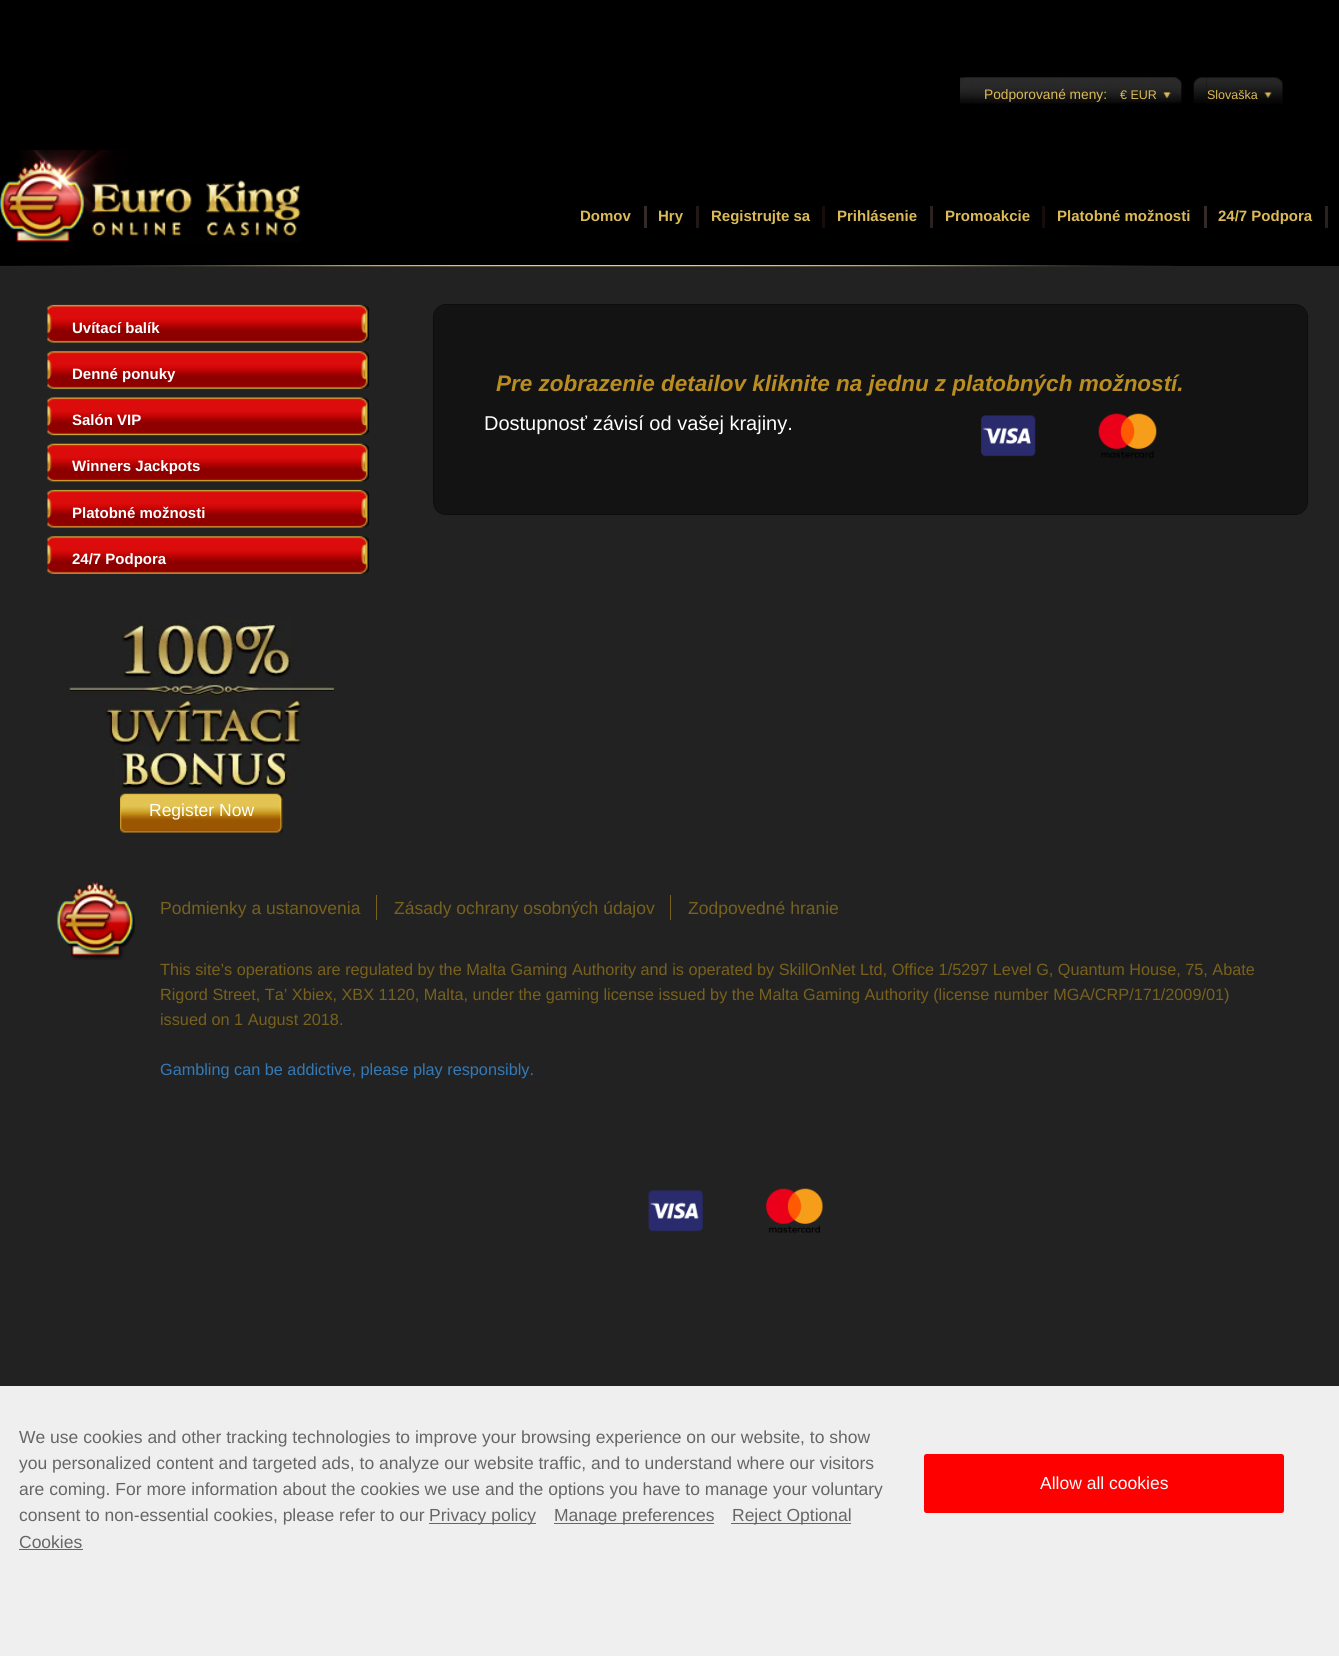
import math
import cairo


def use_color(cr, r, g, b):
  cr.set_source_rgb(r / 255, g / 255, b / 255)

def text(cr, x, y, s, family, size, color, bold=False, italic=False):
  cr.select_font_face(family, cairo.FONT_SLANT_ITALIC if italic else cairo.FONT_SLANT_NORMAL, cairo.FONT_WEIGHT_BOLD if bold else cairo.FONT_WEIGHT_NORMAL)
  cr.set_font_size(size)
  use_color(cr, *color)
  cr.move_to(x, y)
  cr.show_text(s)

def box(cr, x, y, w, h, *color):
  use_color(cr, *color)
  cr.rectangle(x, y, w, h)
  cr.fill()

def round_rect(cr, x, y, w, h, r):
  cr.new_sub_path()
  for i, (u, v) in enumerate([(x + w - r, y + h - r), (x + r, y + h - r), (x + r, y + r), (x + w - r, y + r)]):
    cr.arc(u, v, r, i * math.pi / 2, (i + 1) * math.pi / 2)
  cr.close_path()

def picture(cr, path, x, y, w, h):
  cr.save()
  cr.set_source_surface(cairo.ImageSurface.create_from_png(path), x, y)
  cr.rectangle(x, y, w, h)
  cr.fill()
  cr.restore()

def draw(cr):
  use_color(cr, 34, 34, 34)
  cr.paint()
  box(cr, 0, 0, 1339, 266, 0, 0, 0)
  picture(cr, "img_01.png", 960, 77, 222, 27)
  picture(cr, "img_02.png", 960, 77, 13, 26)
  picture(cr, "img_03.png", 972, 77, 148, 26)
  picture(cr, "img_04.png", 1120, 77, 62, 25)
  picture(cr, "img_05.png", 1193, 77, 14, 26)
  picture(cr, "img_06.png", 1206, 77, 77, 27)
  picture(cr, "img_07.png", 0, 150, 301, 92)
  box(cr, 644, 206, 3, 22, 52, 43, 40)
  box(cr, 696, 206, 3, 22, 34, 25, 23)
  box(cr, 822, 206, 3, 22, 22, 13, 11)
  box(cr, 930, 206, 3, 22, 43, 34, 31)
  box(cr, 1042, 206, 3, 22, 22, 13, 11)
  box(cr, 1204, 206, 3, 22, 52, 43, 40)
  box(cr, 1325, 206, 3, 22, 43, 34, 31)
  picture(cr, "img_08.png", 0, 265, 1174, 2)
  picture(cr, "img_09.png", 47, 304, 322, 39)
  picture(cr, "img_10.png", 47, 351, 322, 38)
  picture(cr, "img_11.png", 47, 397, 322, 39)
  picture(cr, "img_12.png", 47, 443, 322, 39)
  picture(cr, "img_09.png", 47, 489, 322, 39)
  picture(cr, "img_10.png", 47, 536, 322, 38)
  picture(cr, "img_13.png", 64, 619, 273, 170)
  picture(cr, "img_14.png", 120, 793, 163, 40)
  use_color(cr, 19, 19, 19)
  round_rect(cr, 433.5, 304.5, 874, 210, 12.5)
  cr.fill_preserve()
  use_color(cr, 13, 13, 13)
  cr.set_line_width(1)
  cr.stroke()
  picture(cr, "img_15.png", 981, 415, 55, 42)
  picture(cr, "img_16.png", 1098, 413, 59, 45)
  picture(cr, "img_17.png", 57, 882, 78, 78)
  box(cr, 376, 895, 1, 25, 120, 97, 28)
  box(cr, 670, 895, 1, 25, 120, 97, 28)
  picture(cr, "img_18.png", 648, 1190, 55, 42)
  picture(cr, "img_19.png", 766, 1188, 57, 45)
  box(cr, 0, 1386, 1339, 270, 239, 239, 239)
  box(cr, 429, 1523, 107, 1, 102, 102, 102)
  box(cr, 554, 1523, 160, 1, 102, 102, 102)
  box(cr, 731, 1523, 120, 1, 102, 102, 102)
  box(cr, 19, 1549, 64, 1, 102, 102, 102)
  use_color(cr, 255, 0, 0)
  round_rect(cr, 924, 1454, 360, 59, 2.5)
  cr.fill()
  text(cr, 984, 99, "Podporované meny:", "Liberation Sans", 13.75, (220, 186, 87))
  text(cr, 1120, 99, "€ EUR", "Liberation Sans", 12.5, (220, 186, 87))
  text(cr, 1207, 99, "Slovaška", "Liberation Sans", 12.5, (220, 186, 87))
  text(cr, 580, 221, "Domov", "Liberation Sans", 15, (220, 186, 87), bold=True)
  text(cr, 658, 221, "Hry", "Liberation Sans", 15, (220, 186, 87), bold=True)
  text(cr, 711, 221, "Registrujte sa", "Liberation Sans", 15, (220, 186, 87), bold=True)
  text(cr, 837, 221, "Prihlásenie", "Liberation Sans", 15, (220, 186, 87), bold=True)
  text(cr, 945, 221, "Promoakcie", "Liberation Sans", 15, (220, 186, 87), bold=True)
  text(cr, 1057, 221, "Platobné možnosti", "Liberation Sans", 15, (220, 186, 87), bold=True)
  text(cr, 1218, 221, "24/7 Podpora", "Liberation Sans", 15, (220, 186, 87), bold=True)
  text(cr, 72, 333, "Uvítací balík", "Liberation Sans", 15, (255, 255, 255), bold=True)
  text(cr, 72, 379, "Denné ponuky", "Liberation Sans", 15, (255, 255, 255), bold=True)
  text(cr, 72, 425, "Salón VIP", "Liberation Sans", 15, (255, 255, 255), bold=True)
  text(cr, 72, 471, "Winners Jackpots", "Liberation Sans", 15, (255, 255, 255), bold=True)
  text(cr, 72, 518, "Platobné možnosti", "Liberation Sans", 15, (255, 255, 255), bold=True)
  text(cr, 72, 564, "24/7 Podpora", "Liberation Sans", 15, (255, 255, 255), bold=True)
  text(cr, 149, 816, "Register Now", "Liberation Sans", 17.5, (255, 255, 255))
  text(cr, 496, 391, "Pre zobrazenie detailov kliknite na jednu z platobných možností.", "Liberation Sans", 22.5, (186, 141, 33), bold=True, italic=True)
  text(cr, 484, 430, "Dostupnosť závisí od vašej krajiny.", "Liberation Sans", 20, (255, 255, 255))
  text(cr, 160, 914, "Podmienky a ustanovenia", "Liberation Sans", 17.5, (120, 97, 28))
  text(cr, 394, 914, "Zásady ochrany osobných údajov", "Liberation Sans", 17.5, (120, 97, 28))
  text(cr, 688, 914, "Zodpovedné hranie", "Liberation Sans", 17.5, (120, 97, 28))
  text(cr, 160, 975, "This site’s operations are regulated by the Malta Gaming Authority and is operated by SkillOnNet Ltd, Office 1/5297 Level G, Quantum House, 75, Abate", "Liberation Sans", 16.25, (120, 97, 28))
  text(cr, 160, 1000, "Rigord Street, Ta’ Xbiex, XBX 1120, Malta, under the gaming license issued by the Malta Gaming Authority (license number MGA/CRP/171/2009/01)", "Liberation Sans", 16.25, (120, 97, 28))
  text(cr, 160, 1025, "issued on 1 August 2018.", "Liberation Sans", 16.25, (120, 97, 28))
  text(cr, 160, 1075, "Gambling can be addictive, please play responsibly.", "Liberation Sans", 16.25, (51, 122, 183))
  text(cr, 19, 1443, "We use cookies and other tracking technologies to improve your browsing experience on our website, to show", "Liberation Sans", 17.5, (102, 102, 102))
  text(cr, 19, 1469, "you personalized content and targeted ads, to analyze our website traffic, and to understand where our visitors", "Liberation Sans", 17.5, (102, 102, 102))
  text(cr, 19, 1495, "are coming. For more information about the cookies we use and the options you have to manage your voluntary", "Liberation Sans", 17.5, (102, 102, 102))
  text(cr, 19, 1521, "consent to non-essential cookies, please refer to our", "Liberation Sans", 17.5, (102, 102, 102))
  text(cr, 429, 1521, "Privacy policy", "Liberation Sans", 17.5, (102, 102, 102))
  text(cr, 554, 1521, "Manage preferences", "Liberation Sans", 17.5, (102, 102, 102))
  text(cr, 732, 1521, "Reject Optional", "Liberation Sans", 17.5, (102, 102, 102))
  text(cr, 19, 1548, "Cookies", "Liberation Sans", 17.5, (102, 102, 102))
  text(cr, 1040, 1489, "Allow all cookies", "Liberation Sans", 17.5, (255, 255, 255))


surface = cairo.ImageSurface(cairo.FORMAT_RGB24, 1339, 1656)
cr = cairo.Context(surface)
options = cairo.FontOptions()
options.set_hint_metrics(cairo.HINT_METRICS_OFF)
options.set_hint_style(cairo.HINT_STYLE_NONE)
cr.set_font_options(options)
cr.set_miter_limit(4)
draw(cr)
surface.write_to_png("out.png")
